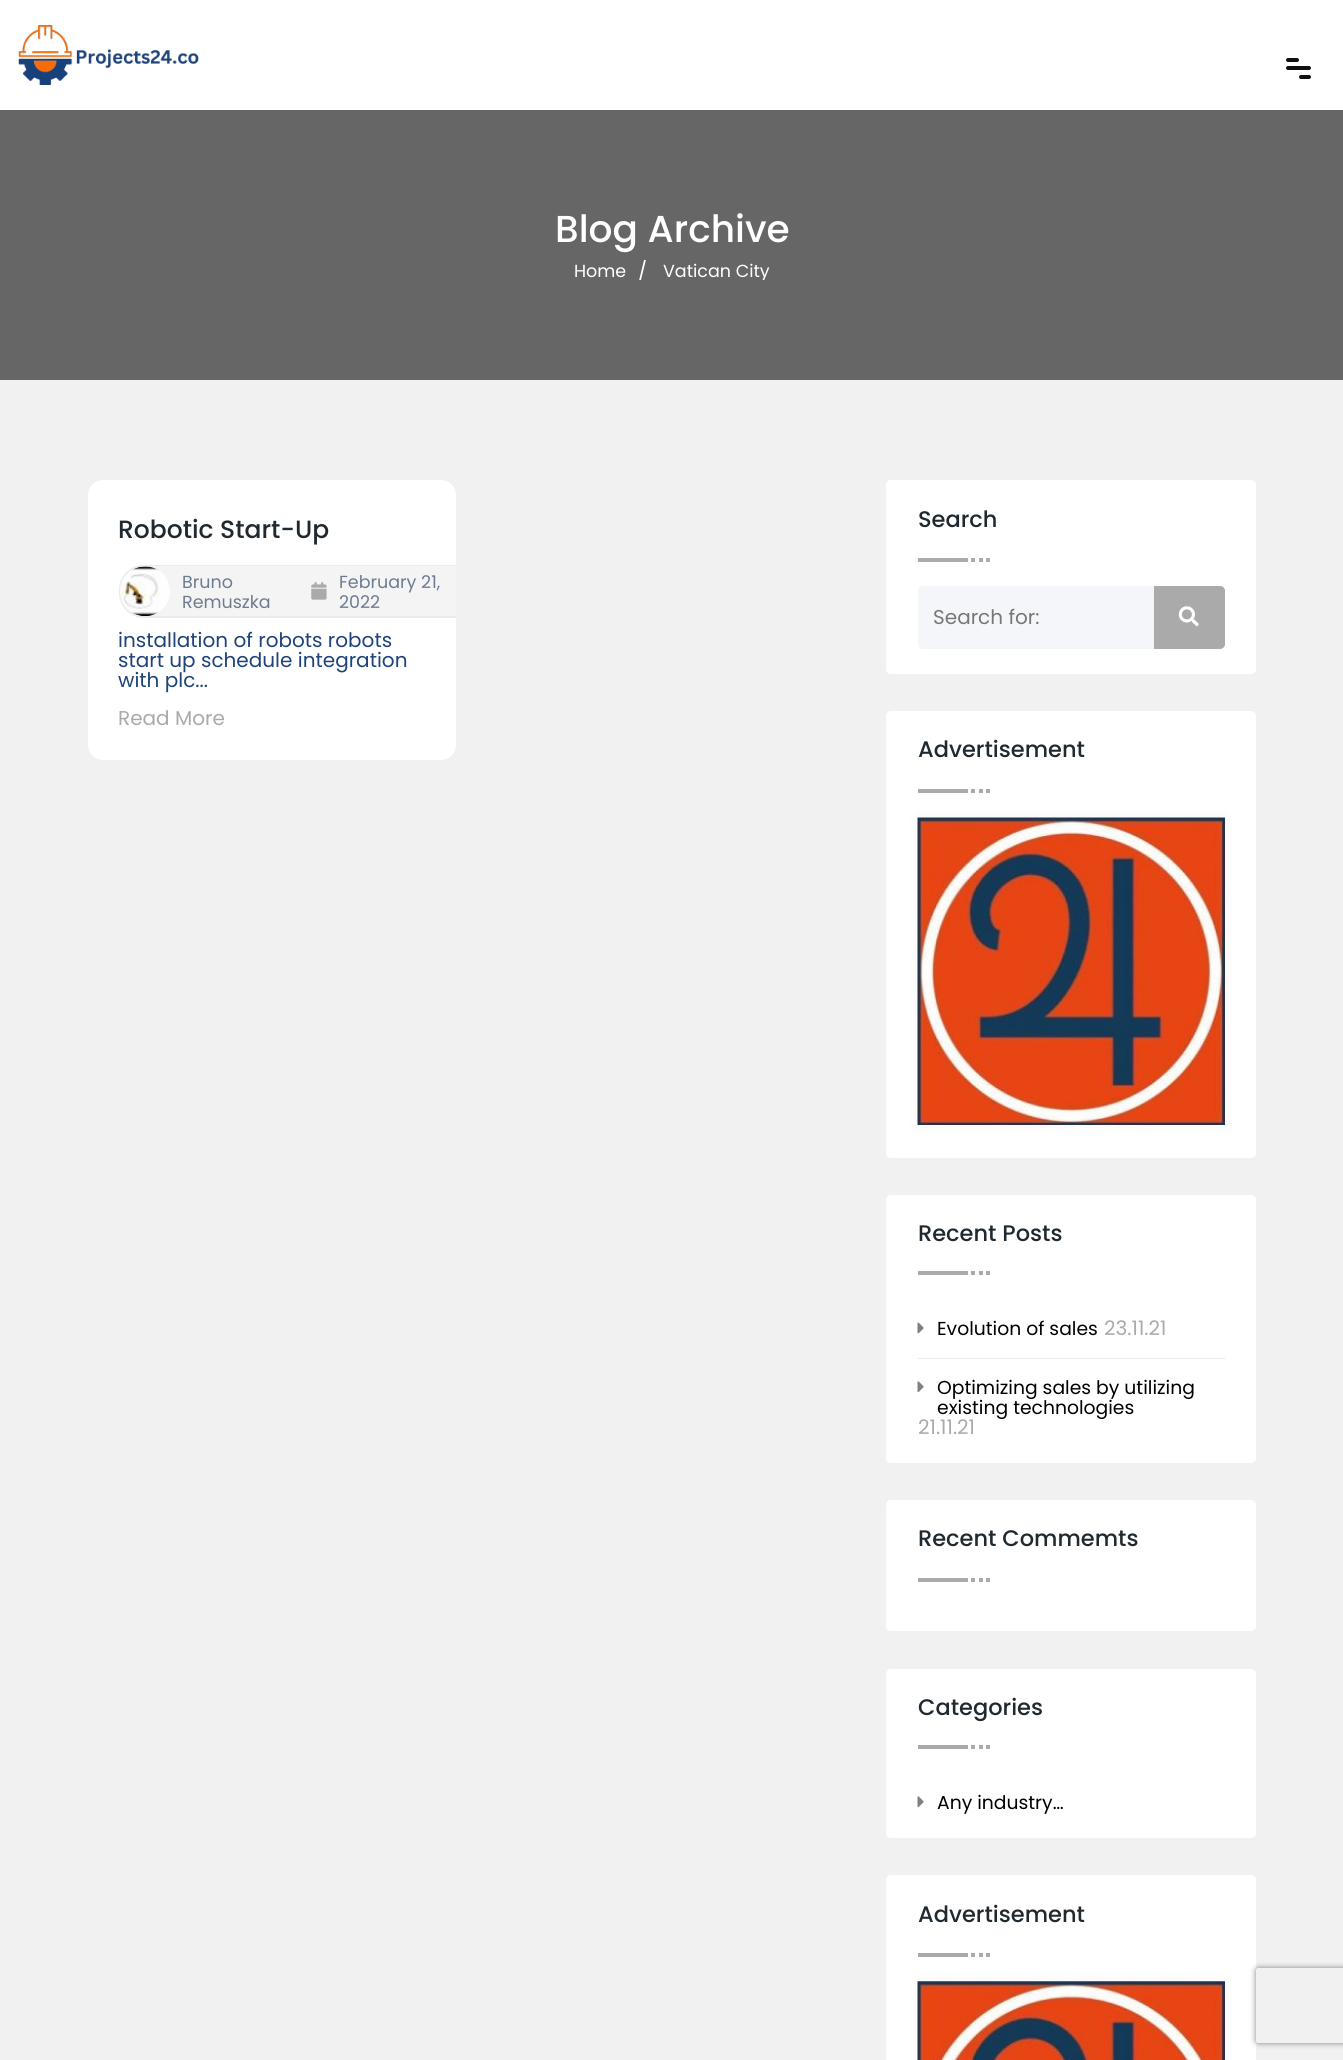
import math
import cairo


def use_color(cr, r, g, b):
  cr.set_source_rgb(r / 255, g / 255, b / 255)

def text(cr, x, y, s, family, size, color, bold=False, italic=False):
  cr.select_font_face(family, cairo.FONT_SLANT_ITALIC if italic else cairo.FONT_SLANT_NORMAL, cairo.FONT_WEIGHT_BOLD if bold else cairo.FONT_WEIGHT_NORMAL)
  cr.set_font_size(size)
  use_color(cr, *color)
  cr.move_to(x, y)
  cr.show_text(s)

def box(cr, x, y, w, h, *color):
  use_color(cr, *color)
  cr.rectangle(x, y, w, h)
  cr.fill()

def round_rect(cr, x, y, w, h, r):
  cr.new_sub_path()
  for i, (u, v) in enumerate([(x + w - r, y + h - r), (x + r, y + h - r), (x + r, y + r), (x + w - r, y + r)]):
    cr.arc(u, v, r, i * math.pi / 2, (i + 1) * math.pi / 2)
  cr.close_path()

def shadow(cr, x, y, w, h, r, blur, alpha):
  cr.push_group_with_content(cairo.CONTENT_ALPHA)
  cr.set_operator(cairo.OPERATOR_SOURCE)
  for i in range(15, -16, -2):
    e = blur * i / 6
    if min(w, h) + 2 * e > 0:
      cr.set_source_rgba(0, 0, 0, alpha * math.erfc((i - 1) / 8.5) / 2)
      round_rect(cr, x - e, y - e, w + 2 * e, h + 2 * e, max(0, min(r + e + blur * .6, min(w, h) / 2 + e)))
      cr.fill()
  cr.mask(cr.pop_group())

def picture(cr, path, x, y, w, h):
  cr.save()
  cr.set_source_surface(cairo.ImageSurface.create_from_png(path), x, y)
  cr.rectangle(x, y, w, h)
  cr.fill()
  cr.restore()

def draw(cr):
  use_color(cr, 255, 255, 255)
  cr.paint()
  picture(cr, "img_01.png", 18, 25, 181, 60)
  use_color(cr, 17, 17, 17)
  round_rect(cr, 1286, 58, 13, 4, 2)
  cr.fill()
  round_rect(cr, 1286, 66, 25, 4, 2)
  cr.fill()
  round_rect(cr, 1299, 75, 12, 4, 2)
  cr.fill()
  box(cr, 0, 110, 1343, 270, 102, 102, 102)
  box(cr, 0, 380, 1343, 1680, 241, 241, 241)
  use_color(cr, 255, 255, 255)
  round_rect(cr, 88, 480, 368, 280, 15)
  cr.fill()
  use_color(cr, 244, 244, 244)
  cr.new_path()
  cr.move_to(144, 565)
  cr.line_to(456, 565)
  cr.line_to(456, 618)
  cr.line_to(144, 618)
  cr.curve_to(130, 618, 119, 607, 119, 593)
  cr.line_to(119, 590)
  cr.curve_to(119, 576, 130, 565, 144, 565)
  cr.close_path()
  cr.fill()
  use_color(cr, 235, 235, 235)
  cr.set_fill_rule(cairo.FILL_RULE_EVEN_ODD)
  cr.new_path()
  cr.move_to(144, 565)
  cr.line_to(456, 565)
  cr.line_to(456, 618)
  cr.line_to(144, 618)
  cr.curve_to(130, 618, 119, 606, 119, 592)
  cr.line_to(119, 590)
  cr.curve_to(119, 576, 130, 565, 144, 565)
  cr.close_path()
  cr.move_to(144, 566)
  cr.line_to(456, 566)
  cr.line_to(456, 616)
  cr.line_to(144, 616)
  cr.curve_to(131, 616, 120, 606, 120, 592)
  cr.line_to(120, 590)
  cr.curve_to(120, 577, 131, 566, 144, 566)
  cr.close_path()
  cr.fill()
  picture(cr, "img_02.png", 120, 566, 50, 50)
  picture(cr, "img_03.png", 311, 582, 16, 18)
  use_color(cr, 255, 255, 255)
  round_rect(cr, 886, 480, 370, 194, 5)
  cr.fill()
  box(cr, 918, 558, 50, 4, 170, 170, 170)
  box(cr, 971, 558, 4, 4, 170, 170, 170)
  box(cr, 979, 558, 4, 4, 170, 170, 170)
  box(cr, 986, 558, 4, 4, 170, 170, 170)
  cr.new_path()
  cr.move_to(1153.5, 586.5)
  cr.line_to(1220, 586.5)
  cr.curve_to(1222.5, 586.5, 1224.5, 588.5, 1224.5, 591)
  cr.line_to(1224.5, 644)
  cr.curve_to(1224.5, 646.5, 1222.5, 648.5, 1220, 648.5)
  cr.line_to(1153.5, 648.5)
  cr.close_path()
  cr.fill_preserve()
  cr.set_line_width(1)
  cr.stroke()
  use_color(cr, 244, 246, 249)
  cr.new_path()
  cr.move_to(923, 586)
  cr.line_to(1154, 586)
  cr.line_to(1154, 649)
  cr.line_to(923, 649)
  cr.curve_to(920, 649, 918, 647, 918, 644)
  cr.line_to(918, 591)
  cr.curve_to(918, 588, 920, 586, 923, 586)
  cr.close_path()
  cr.fill()
  picture(cr, "img_04.png", 1178, 606, 21, 21)
  use_color(cr, 255, 255, 255)
  round_rect(cr, 886, 711, 370, 447, 5)
  cr.fill()
  box(cr, 918, 789, 50, 4, 170, 170, 170)
  box(cr, 971, 789, 4, 4, 170, 170, 170)
  box(cr, 979, 789, 4, 4, 170, 170, 170)
  box(cr, 986, 789, 4, 4, 170, 170, 170)
  use_color(cr, 245, 245, 245)
  shadow(cr, 918, 818, 307, 307, 0, 6, 1)
  picture(cr, "img_05.png", 917, 817, 308, 308)
  use_color(cr, 255, 255, 255)
  round_rect(cr, 886, 1195, 370, 268, 5)
  cr.fill()
  box(cr, 918, 1271, 50, 4, 170, 170, 170)
  box(cr, 971, 1271, 4, 4, 170, 170, 170)
  box(cr, 979, 1271, 4, 4, 170, 170, 170)
  box(cr, 986, 1271, 4, 4, 170, 170, 170)
  box(cr, 918, 1358, 307, 1, 235, 235, 235)
  picture(cr, "img_06.png", 917, 1322, 7, 12)
  picture(cr, "img_07.png", 917, 1381, 7, 12)
  use_color(cr, 255, 255, 255)
  round_rect(cr, 886, 1500, 370, 131, 5)
  cr.fill()
  box(cr, 918, 1578, 50, 4, 170, 170, 170)
  box(cr, 971, 1578, 4, 4, 170, 170, 170)
  box(cr, 979, 1578, 4, 4, 170, 170, 170)
  box(cr, 986, 1578, 4, 4, 170, 170, 170)
  use_color(cr, 255, 255, 255)
  round_rect(cr, 886, 1669, 370, 169, 5)
  cr.fill()
  box(cr, 918, 1745, 50, 4, 170, 170, 170)
  box(cr, 971, 1745, 4, 4, 170, 170, 170)
  box(cr, 979, 1745, 4, 4, 170, 170, 170)
  box(cr, 986, 1745, 4, 4, 170, 170, 170)
  picture(cr, "img_07.png", 917, 1796, 7, 12)
  use_color(cr, 255, 255, 255)
  round_rect(cr, 886, 1875, 370, 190, 5)
  cr.fill()
  box(cr, 918, 1953, 50, 4, 170, 170, 170)
  box(cr, 971, 1953, 4, 4, 170, 170, 170)
  box(cr, 979, 1953, 4, 4, 170, 170, 170)
  box(cr, 986, 1953, 4, 4, 170, 170, 170)
  use_color(cr, 245, 245, 245)
  shadow(cr, 918, 1981, 307, 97, 0, 6, 1)
  picture(cr, "img_08.png", 917, 1981, 308, 79)
  cr.save()
  cr.new_path()
  cr.move_to(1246, 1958)
  cr.line_to(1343, 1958)
  cr.line_to(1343, 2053)
  cr.line_to(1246, 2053)
  cr.close_path()
  cr.move_to(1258.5, 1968)
  cr.line_to(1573.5, 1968)
  cr.curve_to(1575, 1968, 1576, 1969, 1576, 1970.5)
  cr.line_to(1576, 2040.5)
  cr.curve_to(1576, 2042, 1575, 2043, 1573.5, 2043)
  cr.line_to(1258.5, 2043)
  cr.curve_to(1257, 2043, 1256, 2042, 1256, 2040.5)
  cr.line_to(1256, 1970.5)
  cr.curve_to(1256, 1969, 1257, 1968, 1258.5, 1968)
  cr.close_path()
  cr.clip()
  use_color(cr, 128, 128, 128)
  shadow(cr, 1256, 1968, 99, 75, 2.5, 3, 1)
  cr.restore()
  text(cr, 555, 242, "Blog Archive", "Poppins Medium", 37.5, (255, 255, 255))
  text(cr, 574, 277, "Home", "Poppins", 17.5, (255, 255, 255))
  cr.save()
  cr.set_fill_rule(cairo.FILL_RULE_WINDING)
  cr.rectangle(574, 260, 196, 20)
  cr.clip()
  text(cr, 638, 277, "/", "Poppins", 20, (255, 255, 255))
  text(cr, 663, 277, "Vatican City", "Poppins", 17.5, (255, 255, 255))
  cr.restore()
  text(cr, 118, 538, "Robotic Start-Up", "Poppins Medium", 25, (32, 41, 47))
  text(cr, 182, 588, "Bruno", "Poppins", 17.5, (109, 124, 144))
  text(cr, 182, 608, "Remuszka", "Poppins", 17.5, (109, 124, 144))
  text(cr, 339, 588, "February 21,", "Poppins", 17.5, (109, 124, 144))
  text(cr, 339, 608, "2022", "Poppins", 17.5, (109, 124, 144))
  text(cr, 118, 647, "installation of robots robots", "Poppins", 20, (29, 67, 122))
  text(cr, 118, 667, "start up schedule integration", "Poppins", 20, (29, 67, 122))
  text(cr, 118, 687, "with plc...", "Poppins", 20, (29, 67, 122))
  text(cr, 118, 725, "Read More", "Poppins", 20, (170, 170, 170))
  text(cr, 918, 527, "Search", "Poppins Medium", 22.5, (32, 41, 47))
  text(cr, 933, 624, "Search for:", "Poppins", 20, (119, 119, 119))
  text(cr, 918, 757, "Advertisement", "Poppins Medium", 22.5, (32, 41, 47))
  text(cr, 918, 1241, "Recent Posts", "Poppins Medium", 22.5, (32, 41, 47))
  text(cr, 937, 1335, "Evolution of sales", "Poppins", 18.75, (0, 0, 0))
  text(cr, 1104, 1335, "23.11.21", "Poppins", 20, (170, 170, 170))
  text(cr, 937, 1394, "Optimizing sales by utilizing", "Poppins", 18.75, (0, 0, 0))
  text(cr, 937, 1414, "existing technologies", "Poppins", 18.75, (0, 0, 0))
  text(cr, 918, 1434, "21.11.21", "Poppins", 20, (170, 170, 170))
  text(cr, 918, 1546, "Recent Commemts", "Poppins Medium", 22.5, (32, 41, 47))
  text(cr, 918, 1715, "Categories", "Poppins Medium", 22.5, (32, 41, 47))
  text(cr, 937, 1809, "Any industry…", "Poppins", 18.75, (0, 0, 0))
  text(cr, 918, 1922, "Advertisement", "Poppins Medium", 22.5, (32, 41, 47))


surface = cairo.ImageSurface(cairo.FORMAT_RGB24, 1343, 2060)
cr = cairo.Context(surface)
options = cairo.FontOptions()
options.set_hint_metrics(cairo.HINT_METRICS_OFF)
options.set_hint_style(cairo.HINT_STYLE_NONE)
cr.set_font_options(options)
cr.set_miter_limit(4)
draw(cr)
surface.write_to_png("out.png")
